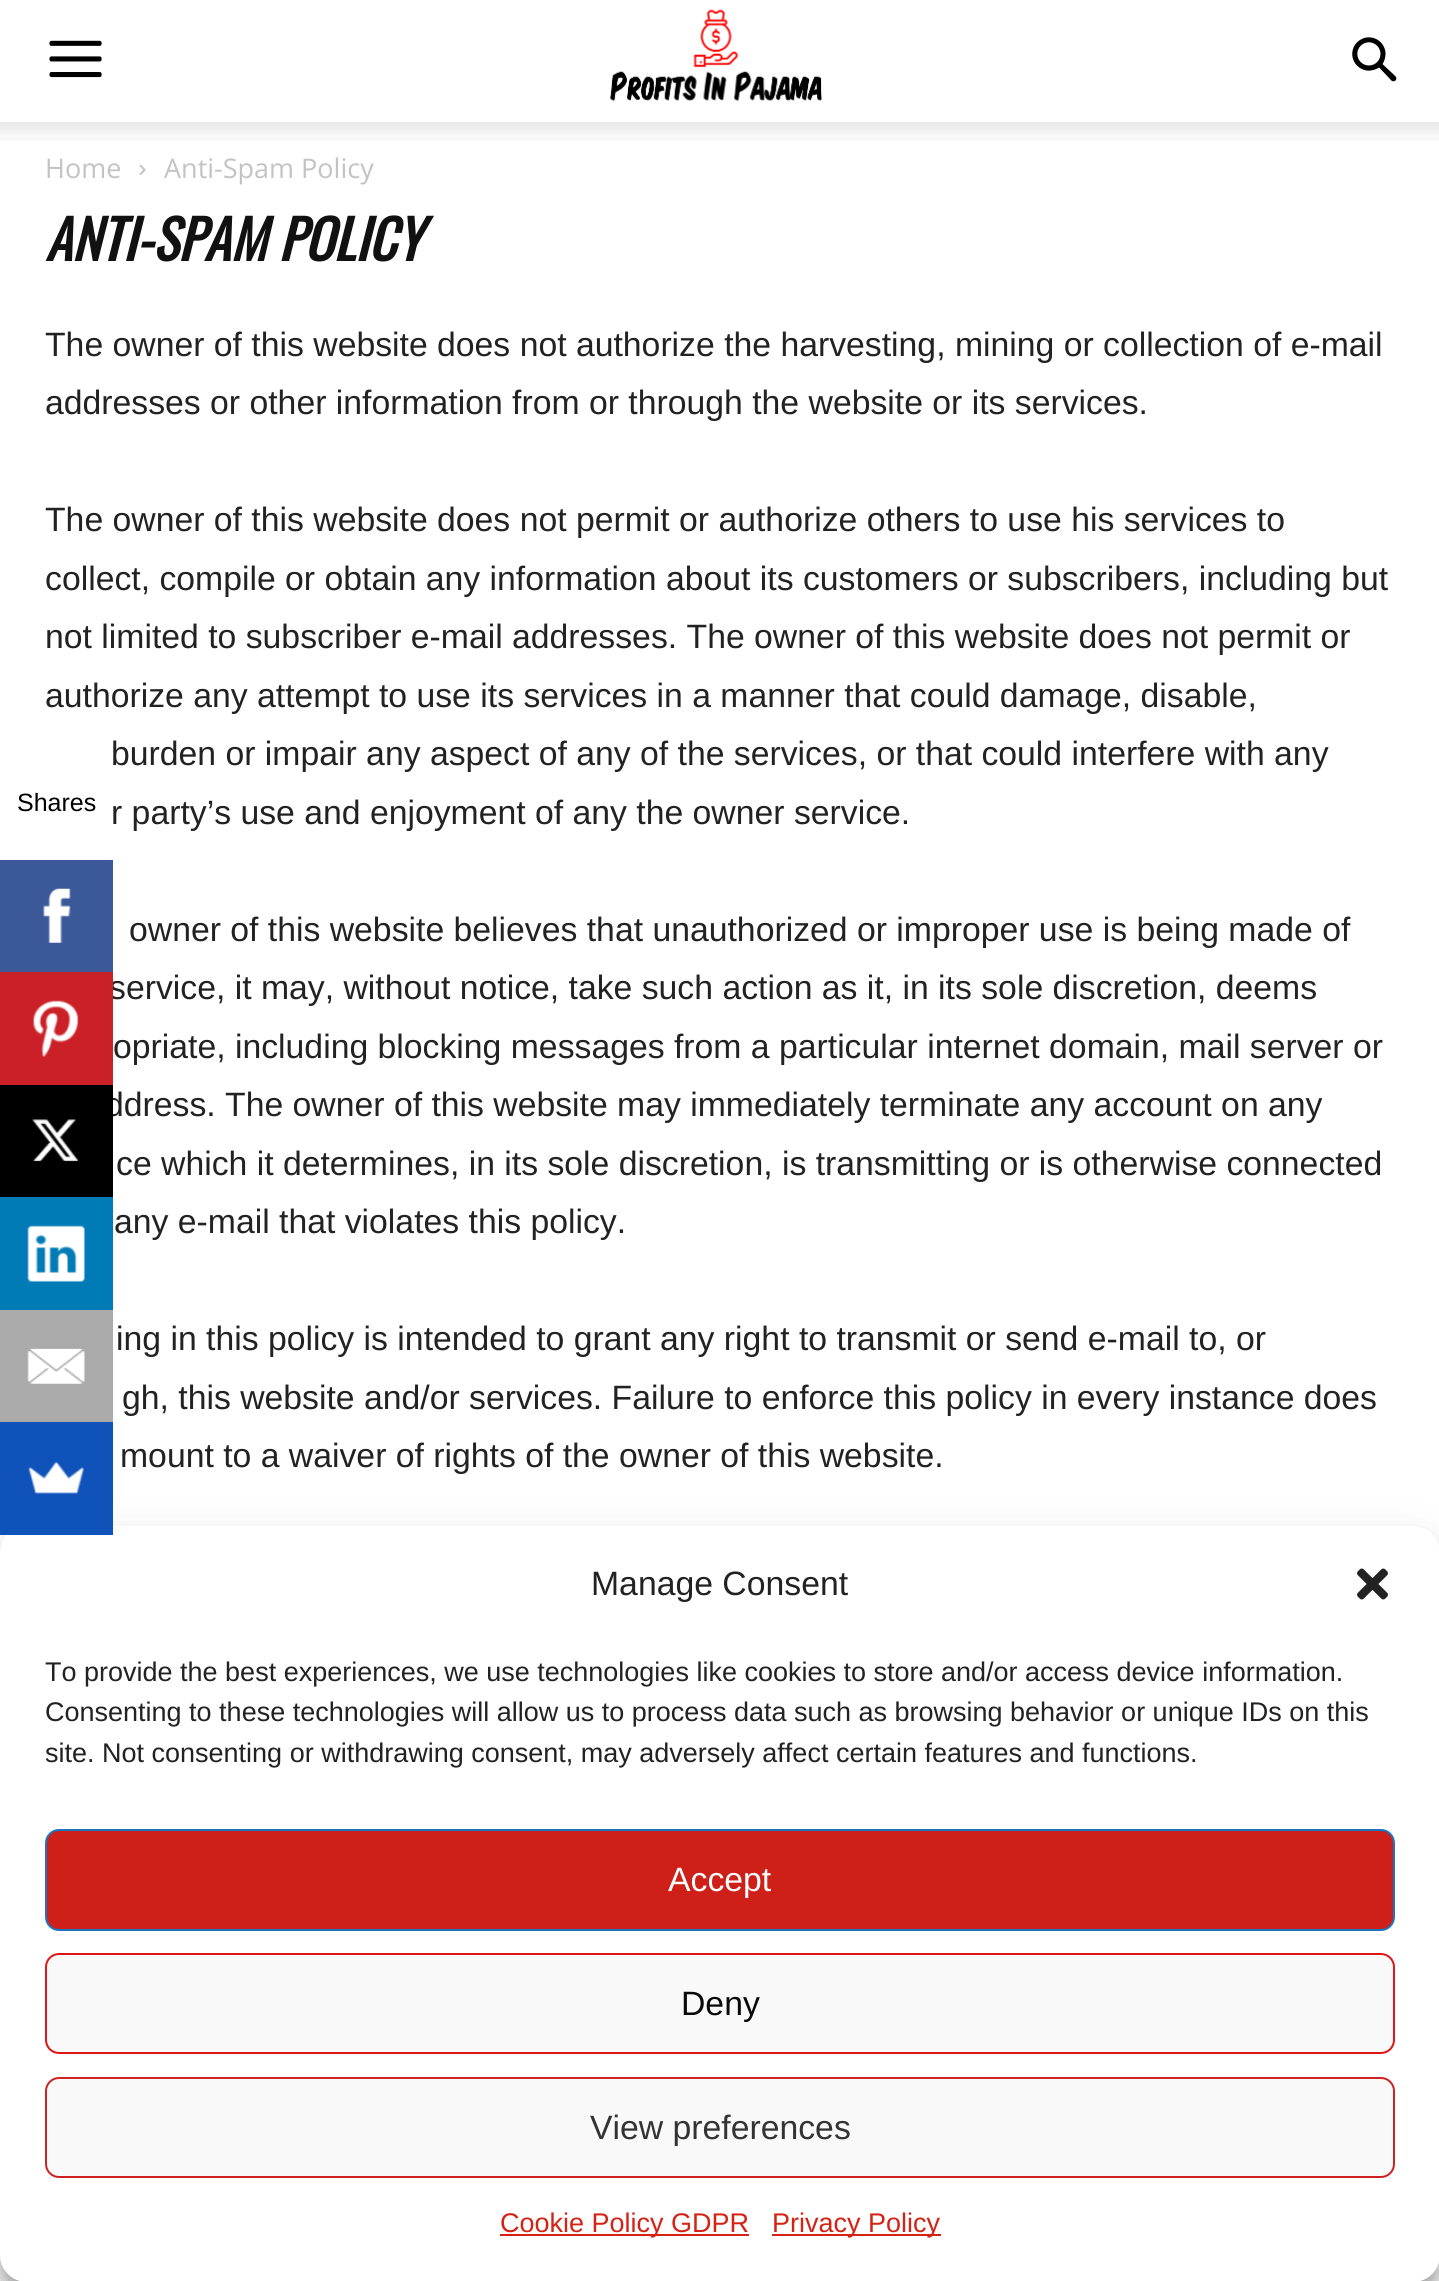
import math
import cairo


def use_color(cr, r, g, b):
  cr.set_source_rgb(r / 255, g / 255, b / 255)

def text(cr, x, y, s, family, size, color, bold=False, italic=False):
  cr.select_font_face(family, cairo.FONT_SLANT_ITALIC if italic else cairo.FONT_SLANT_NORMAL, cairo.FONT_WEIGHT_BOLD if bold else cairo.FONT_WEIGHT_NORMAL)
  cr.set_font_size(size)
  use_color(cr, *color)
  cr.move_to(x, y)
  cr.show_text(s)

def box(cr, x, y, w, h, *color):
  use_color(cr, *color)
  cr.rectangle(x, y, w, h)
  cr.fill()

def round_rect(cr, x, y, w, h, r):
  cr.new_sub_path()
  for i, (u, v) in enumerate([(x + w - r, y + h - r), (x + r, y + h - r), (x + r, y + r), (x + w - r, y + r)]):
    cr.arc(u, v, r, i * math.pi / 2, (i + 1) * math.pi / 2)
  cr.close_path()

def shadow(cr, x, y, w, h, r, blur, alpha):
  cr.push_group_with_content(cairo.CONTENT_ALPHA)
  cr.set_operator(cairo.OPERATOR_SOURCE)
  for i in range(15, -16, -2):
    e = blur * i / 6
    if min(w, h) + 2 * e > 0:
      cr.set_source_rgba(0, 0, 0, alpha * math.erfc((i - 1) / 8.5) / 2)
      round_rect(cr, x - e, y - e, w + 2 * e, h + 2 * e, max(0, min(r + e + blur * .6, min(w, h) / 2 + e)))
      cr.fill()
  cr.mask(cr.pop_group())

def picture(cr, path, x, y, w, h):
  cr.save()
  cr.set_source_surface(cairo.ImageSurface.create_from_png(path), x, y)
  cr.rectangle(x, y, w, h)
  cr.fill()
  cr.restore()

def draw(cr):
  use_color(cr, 255, 255, 255)
  cr.paint()
  picture(cr, "img_01.png", 49, 40, 53, 38)
  picture(cr, "img_02.png", 610, 9, 212, 92)
  picture(cr, "img_03.png", 1352, 37, 45, 45)
  picture(cr, "img_04.png", 0, 122, 1439, 19)
  picture(cr, "img_05.png", 139, 164, 7, 11)
  box(cr, 0, 860, 113, 112, 59, 89, 152)
  picture(cr, "img_06.png", 43, 888, 28, 55)
  box(cr, 0, 1197, 113, 113, 0, 123, 182)
  picture(cr, "img_09.png", 27, 1225, 58, 57)
  box(cr, 0, 1310, 113, 112, 170, 170, 170)
  picture(cr, "img_10.png", 27, 1348, 58, 36)
  use_color(cr, 0, 0, 0)
  shadow(cr, 0, 1539, 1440, 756, 27, 7, 0.23)
  shadow(cr, 0, 1548, 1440, 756, 27, 22.5, 0.19)
  use_color(cr, 255, 255, 255)
  round_rect(cr, 0, 1526, 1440, 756, 27)
  cr.fill()
  box(cr, 0, 1422, 113, 113, 15, 82, 186)
  picture(cr, "img_11.png", 28, 1462, 56, 32)
  picture(cr, "img_12.png", 1357, 1568, 31, 32)
  use_color(cr, 206, 31, 25)
  round_rect(cr, 46, 1830, 1348, 100, 13)
  cr.fill_preserve()
  use_color(cr, 30, 115, 190)
  cr.stroke()
  use_color(cr, 249, 249, 249)
  round_rect(cr, 46, 1954, 1348, 99, 13)
  cr.fill_preserve()
  use_color(cr, 224, 21, 21)
  cr.stroke()
  use_color(cr, 249, 249, 249)
  round_rect(cr, 46, 2078, 1348, 99, 13)
  cr.fill_preserve()
  use_color(cr, 206, 34, 34)
  cr.stroke()
  box(cr, 500, 2234, 249, 2, 212, 34, 21)
  box(cr, 772, 2234, 169, 2, 212, 34, 21)
  text(cr, 45, 178, "Home", "Open Sans", 27, (195, 195, 195))
  text(cr, 164, 178, "Anti-Spam Policy", "Open Sans", 27, (195, 195, 195))
  text(cr, 45, 261, "ANTI-SPAM POLICY", "Oswald", 54, (17, 17, 17), bold=True, italic=True)
  text(cr, 45, 356, "The owner of this website does not authorize the harvesting, mining or collection of e-mail", "Liberation Sans", 33.75, (34, 34, 34))
  text(cr, 45, 414, "addresses or other information from or through the website or its services.", "Liberation Sans", 33.75, (34, 34, 34))
  text(cr, 45, 531, "The owner of this website does not permit or authorize others to use his services to", "Liberation Sans", 33.75, (34, 34, 34))
  text(cr, 45, 590, "collect, compile or obtain any information about its customers or subscribers, including but", "Liberation Sans", 33.75, (34, 34, 34))
  text(cr, 45, 648, "not limited to subscriber e-mail addresses. The owner of this website does not permit or", "Liberation Sans", 33.75, (34, 34, 34))
  text(cr, 45, 707, "authorize any attempt to use its services in a manner that could damage, disable,", "Liberation Sans", 33.75, (34, 34, 34))
  text(cr, 111, 765, "burden or impair any aspect of any of the services, or that could interfere with any", "Liberation Sans", 33.75, (34, 34, 34))
  text(cr, 111, 824, "r party’s use and enjoyment of any the owner service.", "Liberation Sans", 33.75, (34, 34, 34))
  text(cr, 129, 941, "owner of this website believes that unauthorized or improper use is being made of", "Liberation Sans", 33.75, (34, 34, 34))
  text(cr, 109, 999, "service, it may, without notice, take such action as it, in its sole discretion, deems", "Liberation Sans", 33.75, (34, 34, 34))
  text(cr, 113, 1058, "opriate, including blocking messages from a particular internet domain, mail server or", "Liberation Sans", 33.75, (34, 34, 34))
  text(cr, 105, 1116, "ddress. The owner of this website may immediately terminate any account on any", "Liberation Sans", 33.75, (34, 34, 34))
  text(cr, 116, 1175, "ce which it determines, in its sole discretion, is transmitting or is otherwise connected", "Liberation Sans", 33.75, (34, 34, 34))
  text(cr, 114, 1233, "any e-mail that violates this policy.", "Liberation Sans", 33.75, (34, 34, 34))
  text(cr, 116, 1350, "ing in this policy is intended to grant any right to transmit or send e-mail to, or", "Liberation Sans", 33.75, (34, 34, 34))
  text(cr, 122, 1409, "gh, this website and/or services. Failure to enforce this policy in every instance does", "Liberation Sans", 33.75, (34, 34, 34))
  text(cr, 120, 1467, "mount to a waiver of rights of the owner of this website.", "Liberation Sans", 33.75, (34, 34, 34))
  box(cr, 112, 747, 1, 62, 255, 255, 255)
  text(cr, 17, 811, "Shares", "Liberation Sans", 25, (0, 0, 0))
  box(cr, 0, 972, 113, 113, 203, 32, 39)
  picture(cr, "img_07.png", 33, 1000, 46, 57)
  box(cr, 0, 1085, 113, 112, 0, 0, 0)
  picture(cr, "img_08.png", 32, 1119, 47, 43)
  text(cr, 591, 1595, "Manage Consent", "Liberation Sans", 33.75, (34, 34, 34))
  text(cr, 45, 1681, "To provide the best experiences, we use technologies like cookies to store and/or access device information.", "Liberation Sans", 27, (34, 34, 34))
  text(cr, 45, 1721, "Consenting to these technologies will allow us to process data such as browsing behavior or unique IDs on this", "Liberation Sans", 27, (34, 34, 34))
  text(cr, 45, 1762, "site. Not consenting or withdrawing consent, may adversely affect certain features and functions.", "Liberation Sans", 27, (34, 34, 34))
  text(cr, 668, 1891, "Accept", "Liberation Sans", 33.75, (255, 255, 255))
  text(cr, 681, 2015, "Deny", "Liberation Sans", 33.75, (10, 10, 10))
  text(cr, 590, 2139, "View preferences", "Liberation Sans", 33.75, (51, 51, 51))
  text(cr, 500, 2232, "Cookie Policy GDPR", "Liberation Sans", 27, (212, 34, 21))
  text(cr, 772, 2232, "Privacy Policy", "Liberation Sans", 27, (212, 34, 21))


surface = cairo.ImageSurface(cairo.FORMAT_RGB24, 1439, 2281)
cr = cairo.Context(surface)
options = cairo.FontOptions()
options.set_hint_metrics(cairo.HINT_METRICS_OFF)
options.set_hint_style(cairo.HINT_STYLE_NONE)
cr.set_font_options(options)
cr.set_miter_limit(4)
draw(cr)
surface.write_to_png("out.png")
